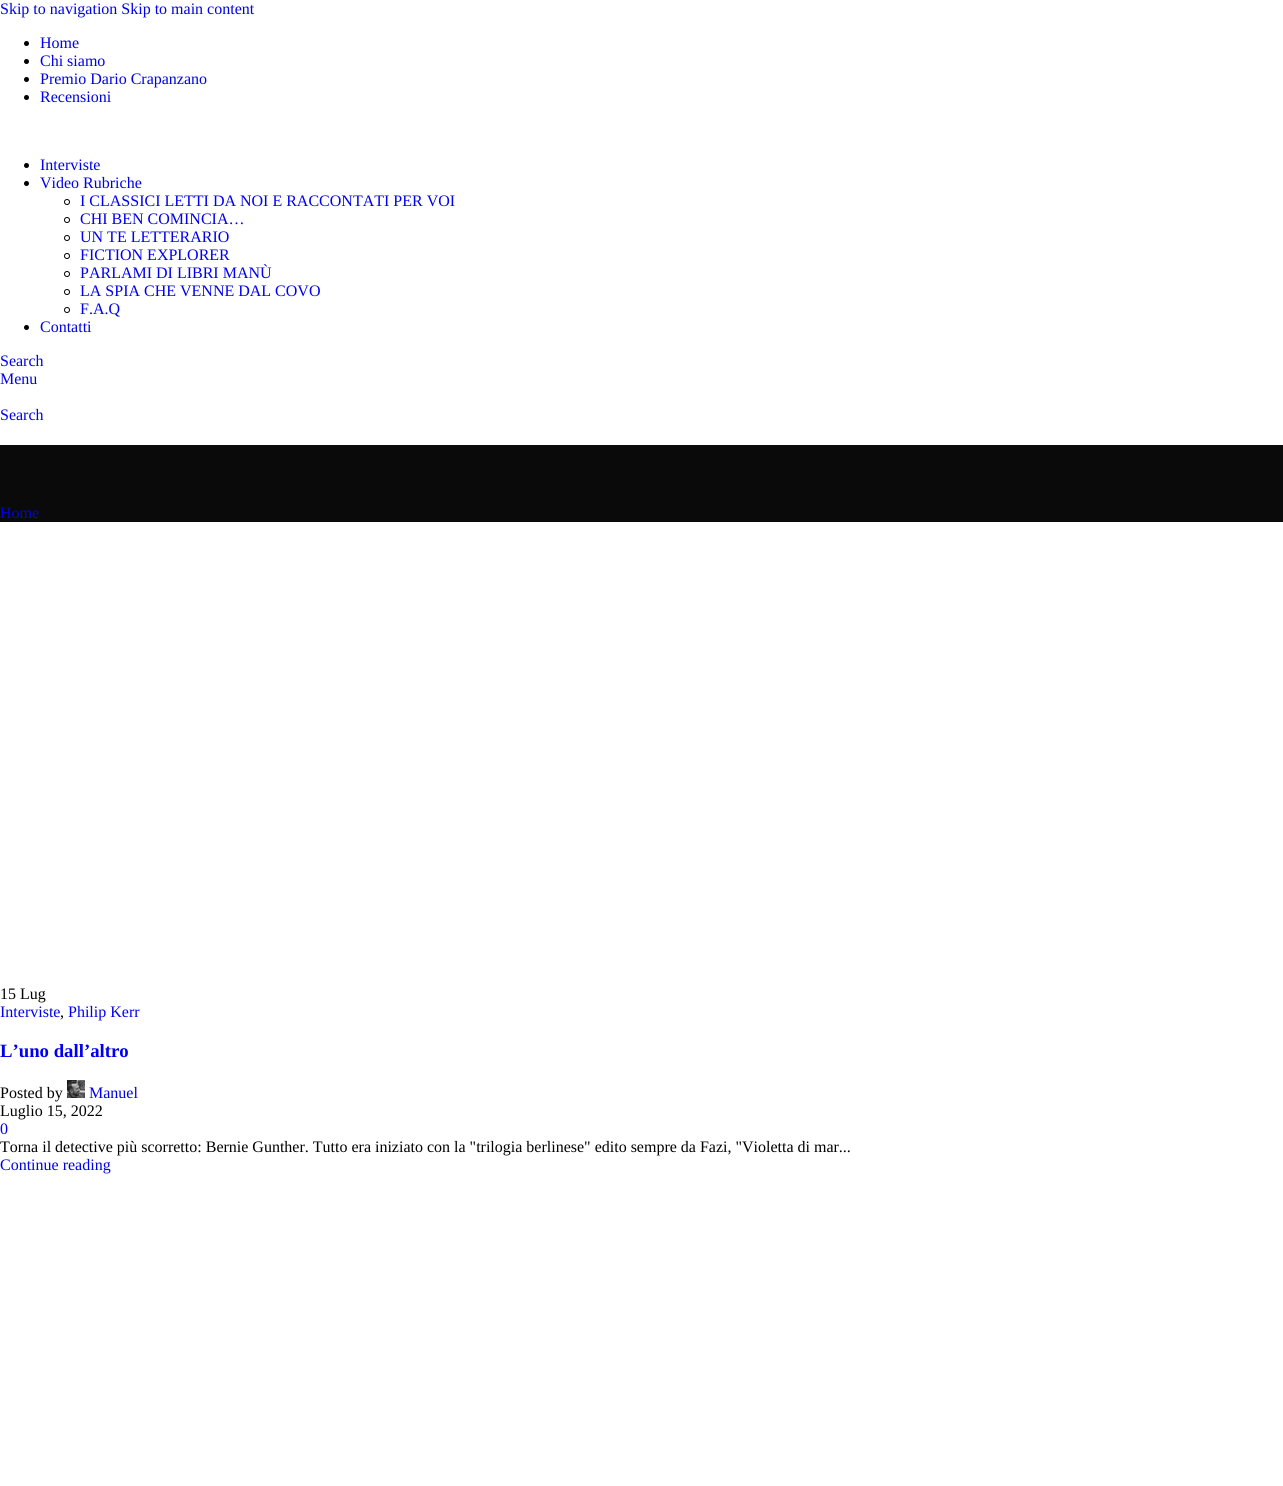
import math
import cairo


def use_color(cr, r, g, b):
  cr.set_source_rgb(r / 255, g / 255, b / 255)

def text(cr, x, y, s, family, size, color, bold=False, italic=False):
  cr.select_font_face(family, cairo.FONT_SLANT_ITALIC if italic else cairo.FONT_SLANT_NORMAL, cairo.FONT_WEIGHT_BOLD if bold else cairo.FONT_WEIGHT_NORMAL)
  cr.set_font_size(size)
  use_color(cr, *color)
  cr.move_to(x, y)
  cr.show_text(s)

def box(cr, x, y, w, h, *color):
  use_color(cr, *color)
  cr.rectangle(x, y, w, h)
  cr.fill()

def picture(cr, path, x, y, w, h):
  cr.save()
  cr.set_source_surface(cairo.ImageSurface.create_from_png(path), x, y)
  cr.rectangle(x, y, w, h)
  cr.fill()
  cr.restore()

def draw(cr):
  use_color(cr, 255, 255, 255)
  cr.paint()
  use_color(cr, 0, 0, 0)
  cr.arc(26.5, 43.5, 2.5, 0, 2 * math.pi)
  cr.fill()
  cr.arc(26.5, 61.5, 2.5, 0, 2 * math.pi)
  cr.fill()
  cr.arc(26.5, 79.5, 2.5, 0, 2 * math.pi)
  cr.fill()
  cr.arc(26.5, 97.5, 2.5, 0, 2 * math.pi)
  cr.fill()
  cr.arc(26.5, 165.5, 2.5, 0, 2 * math.pi)
  cr.fill()
  cr.arc(26.5, 183.5, 2.5, 0, 2 * math.pi)
  cr.fill()
  cr.arc(67, 202, 2.5, 0, 2 * math.pi)
  cr.set_line_width(1)
  cr.stroke()
  cr.arc(67, 220, 2.5, 0, 2 * math.pi)
  cr.stroke()
  cr.arc(67, 238, 2.5, 0, 2 * math.pi)
  cr.stroke()
  cr.arc(67, 256, 2.5, 0, 2 * math.pi)
  cr.stroke()
  cr.arc(67, 274, 2.5, 0, 2 * math.pi)
  cr.stroke()
  cr.arc(67, 292, 2.5, 0, 2 * math.pi)
  cr.stroke()
  cr.arc(67, 310, 2.5, 0, 2 * math.pi)
  cr.stroke()
  cr.arc(26.5, 327.5, 2.5, 0, 2 * math.pi)
  cr.fill()
  box(cr, 0, 445, 1283, 77, 10, 10, 10)
  picture(cr, "img_01.png", 67, 1080, 18, 18)
  text(cr, 0, 14, "Skip to navigation Skip to main content", "Liberation Serif", 16, (0, 0, 238))
  text(cr, 40, 48, "Home", "Liberation Serif", 16, (0, 0, 238))
  text(cr, 40, 66, "Chi siamo", "Liberation Serif", 16, (0, 0, 238))
  text(cr, 40, 84, "Premio Dario Crapanzano", "Liberation Serif", 16, (0, 0, 238))
  text(cr, 40, 102, "Recensioni", "Liberation Serif", 16, (0, 0, 238))
  text(cr, 40, 170, "Interviste", "Liberation Serif", 16, (0, 0, 238))
  text(cr, 40, 188, "Video Rubriche", "Liberation Serif", 16, (0, 0, 238))
  text(cr, 80, 206, "I CLASSICI LETTI DA NOI E RACCONTATI PER VOI", "Liberation Serif", 16, (0, 0, 238))
  text(cr, 80, 224, "CHI BEN COMINCIA…", "Liberation Serif", 16, (0, 0, 238))
  text(cr, 80, 242, "UN TE LETTERARIO", "Liberation Serif", 16, (0, 0, 238))
  text(cr, 80, 260, "FICTION EXPLORER", "Liberation Serif", 16, (0, 0, 238))
  text(cr, 80, 278, "PARLAMI DI LIBRI MANÙ", "Liberation Serif", 16, (0, 0, 238))
  text(cr, 80, 296, "LA SPIA CHE VENNE DAL COVO", "Liberation Serif", 16, (0, 0, 238))
  text(cr, 80, 314, "F.A.Q", "Liberation Serif", 16, (0, 0, 238))
  text(cr, 40, 332, "Contatti", "Liberation Serif", 16, (0, 0, 238))
  text(cr, 0, 366, "Search", "Liberation Serif", 16, (0, 0, 238))
  text(cr, 0, 384, "Menu", "Liberation Serif", 16, (0, 0, 238))
  text(cr, 0, 420, "Search", "Liberation Serif", 16, (0, 0, 238))
  text(cr, 0, 518, "Home", "Liberation Serif", 16, (0, 0, 238))
  text(cr, 0, 999, "15 Lug", "Liberation Serif", 16, (0, 0, 0))
  text(cr, 0, 1017, "Interviste", "Liberation Serif", 16, (0, 0, 238))
  text(cr, 60, 1017, ",", "Liberation Serif", 16, (0, 0, 0))
  text(cr, 68, 1017, "Philip Kerr", "Liberation Serif", 16, (0, 0, 238))
  text(cr, 0, 1057, "L’uno dall’altro", "Liberation Serif", 18.75, (0, 0, 238), bold=True)
  text(cr, 0, 1098, "Posted by", "Liberation Serif", 16, (0, 0, 0))
  text(cr, 89, 1098, "Manuel", "Liberation Serif", 16, (0, 0, 238))
  text(cr, 0, 1116, "Luglio 15, 2022", "Liberation Serif", 16, (0, 0, 0))
  text(cr, 0, 1134, "0", "Liberation Serif", 16, (0, 0, 238))
  text(cr, 0, 1152, "Torna il detective più scorretto: Bernie Gunther. Tutto era iniziato con la \"trilogia berlinese\" edito sempre da Fazi, \"Violetta di mar...", "Liberation Serif", 16, (0, 0, 0))
  text(cr, 0, 1170, "Continue reading", "Liberation Serif", 16, (0, 0, 238))


surface = cairo.ImageSurface(cairo.FORMAT_RGB24, 1283, 1486)
cr = cairo.Context(surface)
options = cairo.FontOptions()
options.set_hint_metrics(cairo.HINT_METRICS_OFF)
options.set_hint_style(cairo.HINT_STYLE_NONE)
cr.set_font_options(options)
cr.set_miter_limit(4)
draw(cr)
surface.write_to_png("out.png")
